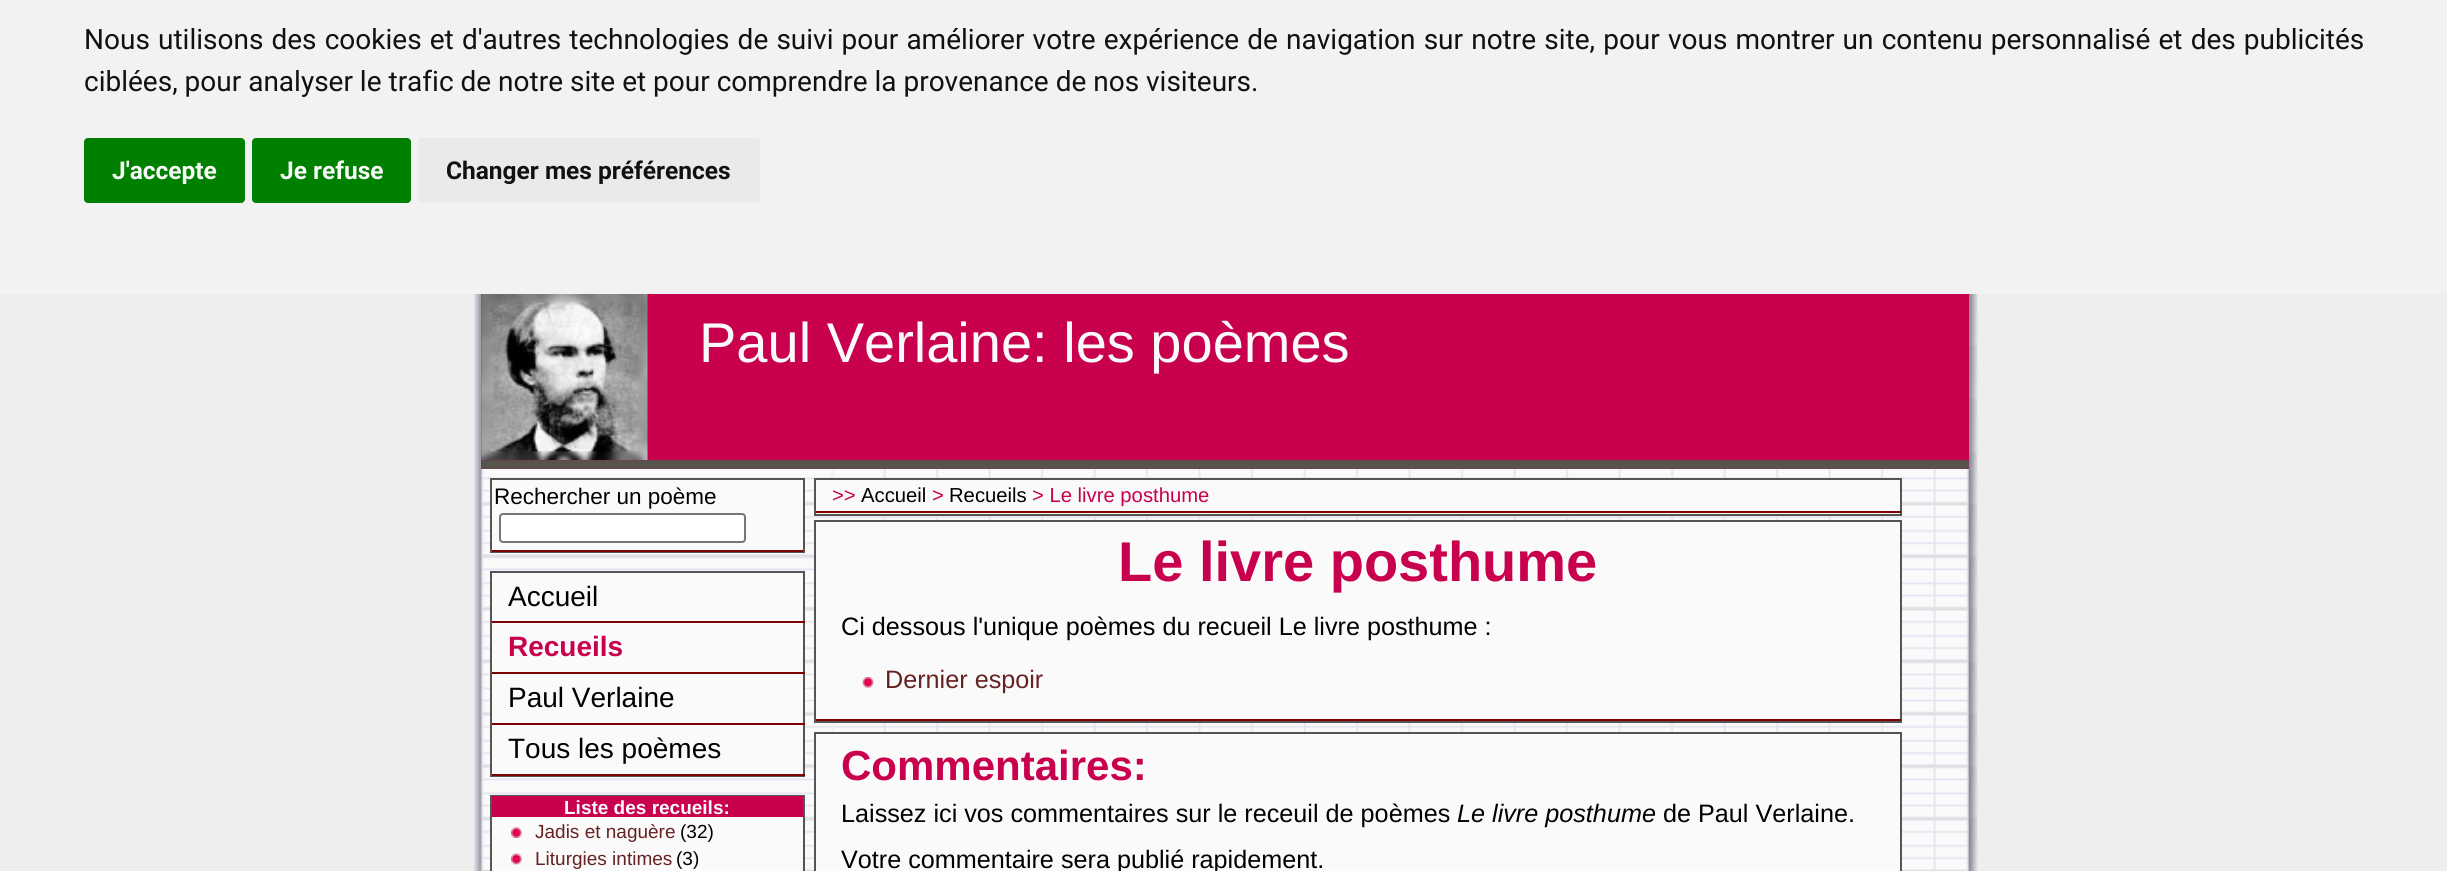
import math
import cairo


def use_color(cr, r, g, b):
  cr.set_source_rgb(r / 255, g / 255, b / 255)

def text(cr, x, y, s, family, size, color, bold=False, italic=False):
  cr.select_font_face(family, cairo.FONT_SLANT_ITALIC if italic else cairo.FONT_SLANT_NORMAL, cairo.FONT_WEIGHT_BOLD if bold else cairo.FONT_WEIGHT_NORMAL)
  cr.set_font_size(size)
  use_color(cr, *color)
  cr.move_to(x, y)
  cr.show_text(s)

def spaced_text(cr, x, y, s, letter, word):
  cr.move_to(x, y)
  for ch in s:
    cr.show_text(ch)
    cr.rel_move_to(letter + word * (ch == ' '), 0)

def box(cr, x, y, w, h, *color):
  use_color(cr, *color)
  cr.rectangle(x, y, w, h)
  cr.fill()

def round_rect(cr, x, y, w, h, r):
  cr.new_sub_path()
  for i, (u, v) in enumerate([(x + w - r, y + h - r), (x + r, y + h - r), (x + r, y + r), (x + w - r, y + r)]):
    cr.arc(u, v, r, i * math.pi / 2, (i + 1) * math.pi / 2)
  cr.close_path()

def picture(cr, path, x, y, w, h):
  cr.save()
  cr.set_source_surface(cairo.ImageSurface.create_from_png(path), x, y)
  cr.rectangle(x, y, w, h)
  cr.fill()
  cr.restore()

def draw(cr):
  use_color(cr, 238, 238, 238)
  cr.paint()
  box(cr, 0, 0, 2447, 294, 242, 242, 242)
  use_color(cr, 0, 128, 0)
  round_rect(cr, 84, 138, 161, 65, 4)
  cr.fill()
  round_rect(cr, 252, 138, 159, 65, 4)
  cr.fill()
  use_color(cr, 234, 234, 234)
  round_rect(cr, 418, 138, 342, 65, 4)
  cr.fill()
  picture(cr, "img_01.png", 474, 294, 1504, 577)
  box(cr, 481, 294, 1488, 175, 200, 0, 78)
  picture(cr, "img_02.png", 481, 294, 1488, 175)
  picture(cr, "img_03.png", 481, 294, 167, 166)
  box(cr, 492, 489, 311, 56, 250, 250, 250)
  cr.rectangle(491, 479, 313, 73)
  use_color(cr, 85, 85, 85)
  cr.stroke()
  use_color(cr, 255, 255, 255)
  round_rect(cr, 500, 514, 245, 28, 3)
  cr.fill_preserve()
  use_color(cr, 118, 118, 118)
  cr.stroke()
  box(cr, 492, 550, 311, 2, 126, 0, 0)
  box(cr, 492, 582, 311, 187, 250, 250, 250)
  cr.rectangle(491, 572, 313, 204)
  use_color(cr, 85, 85, 85)
  cr.stroke()
  box(cr, 492, 621, 313, 2, 126, 0, 0)
  box(cr, 492, 672, 313, 2, 126, 0, 0)
  box(cr, 492, 723, 313, 2, 126, 0, 0)
  box(cr, 492, 774, 313, 2, 126, 0, 0)
  box(cr, 492, 817, 311, 54, 250, 250, 250)
  cr.rectangle(491, 796, 313, 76)
  use_color(cr, 85, 85, 85)
  cr.stroke()
  box(cr, 492, 796, 311, 21, 200, 0, 78)
  picture(cr, "img_04.png", 511, 827, 11, 11)
  picture(cr, "img_05.png", 511, 853, 11, 12)
  use_color(cr, 250, 250, 250)
  cr.rectangle(815, 479, 1086, 36)
  cr.fill_preserve()
  use_color(cr, 85, 85, 85)
  cr.stroke()
  box(cr, 816, 511, 1085, 2, 126, 0, 0)
  box(cr, 816, 522, 1084, 197, 250, 250, 250)
  cr.rectangle(815, 521, 1086, 201)
  use_color(cr, 85, 85, 85)
  cr.stroke()
  picture(cr, "img_06.png", 862, 677, 12, 11)
  box(cr, 816, 719, 1085, 2, 126, 0, 0)
  use_color(cr, 250, 250, 250)
  cr.rectangle(815, 733, 1086, 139)
  cr.fill_preserve()
  use_color(cr, 85, 85, 85)
  cr.stroke()
  cr.select_font_face("Roboto")
  cr.set_font_size(28)
  use_color(cr, 17, 17, 17)
  spaced_text(cr, 84, 49, "Nous utilisons des cookies et d'autres technologies de suivi pour améliorer votre expérience de navigation sur notre site, pour vous montrer un contenu personnalisé et des publicités", 0, 1.2)
  text(cr, 84, 91, "ciblées, pour analyser le trafic de notre site et pour comprendre la provenance de nos visiteurs.", "Roboto", 28, (17, 17, 17))
  text(cr, 112, 179, "J'accepte", "Roboto", 24.5, (250, 250, 250), bold=True)
  text(cr, 280, 179, "Je refuse", "Roboto", 24.5, (250, 250, 250), bold=True)
  text(cr, 446, 179, "Changer mes préférences", "Roboto", 24.5, (17, 17, 17), bold=True)
  text(cr, 699, 362, "Paul Verlaine: les poèmes", "Liberation Sans", 56, (250, 250, 250))
  text(cr, 494, 504, "Rechercher un poème", "Liberation Sans", 22.5, (0, 0, 0))
  text(cr, 508, 606, "Accueil", "Liberation Sans", 28, (0, 0, 0))
  text(cr, 508, 656, "Recueils", "Liberation Sans", 28, (200, 0, 78), bold=True)
  text(cr, 508, 707, "Paul Verlaine", "Liberation Sans", 28, (0, 0, 0))
  text(cr, 508, 758, "Tous les poèmes", "Liberation Sans", 28, (0, 0, 0))
  text(cr, 564, 814, "Liste des recueils:", "Liberation Sans", 19, (250, 250, 250), bold=True)
  text(cr, 535, 838, "Jadis et naguère", "Liberation Sans", 19, (102, 34, 34))
  text(cr, 680, 838, "(32)", "Liberation Sans", 19, (0, 0, 0))
  text(cr, 535, 865, "Liturgies intimes", "Liberation Sans", 19, (102, 34, 34))
  text(cr, 676, 865, "(3)", "Liberation Sans", 19, (0, 0, 0))
  text(cr, 832, 502, ">>", "Liberation Sans", 20.25, (200, 0, 78))
  text(cr, 861, 502, "Accueil", "Liberation Sans", 20.25, (0, 0, 0))
  text(cr, 932, 502, ">", "Liberation Sans", 20.25, (200, 0, 78))
  text(cr, 949, 502, "Recueils", "Liberation Sans", 20.25, (0, 0, 0))
  text(cr, 1032, 502, "> Le livre posthume", "Liberation Sans", 20.25, (200, 0, 78))
  text(cr, 1118, 581, "Le livre posthume", "Liberation Sans", 56, (200, 0, 78), bold=True)
  text(cr, 841, 635, "Ci dessous l'unique poèmes du recueil Le livre posthume :", "Liberation Sans", 25.2, (0, 0, 0))
  text(cr, 885, 688, "Dernier espoir", "Liberation Sans", 25.2, (102, 34, 34))
  text(cr, 841, 780, "Commentaires:", "Liberation Sans", 42, (200, 0, 78), bold=True)
  text(cr, 841, 822, "Laissez ici vos commentaires sur le receuil de poèmes", "Liberation Sans", 25.2, (0, 0, 0))
  text(cr, 1457, 822, "Le livre posthume", "Liberation Sans", 25.2, (0, 0, 0), italic=True)
  text(cr, 1663, 822, "de Paul Verlaine.", "Liberation Sans", 25.2, (0, 0, 0))
  text(cr, 841, 868, "Votre commentaire sera publié rapidement.", "Liberation Sans", 25.2, (0, 0, 0))


surface = cairo.ImageSurface(cairo.FORMAT_RGB24, 2447, 871)
cr = cairo.Context(surface)
options = cairo.FontOptions()
options.set_hint_metrics(cairo.HINT_METRICS_OFF)
options.set_hint_style(cairo.HINT_STYLE_NONE)
cr.set_font_options(options)
cr.set_miter_limit(4)
draw(cr)
surface.write_to_png("out.png")
